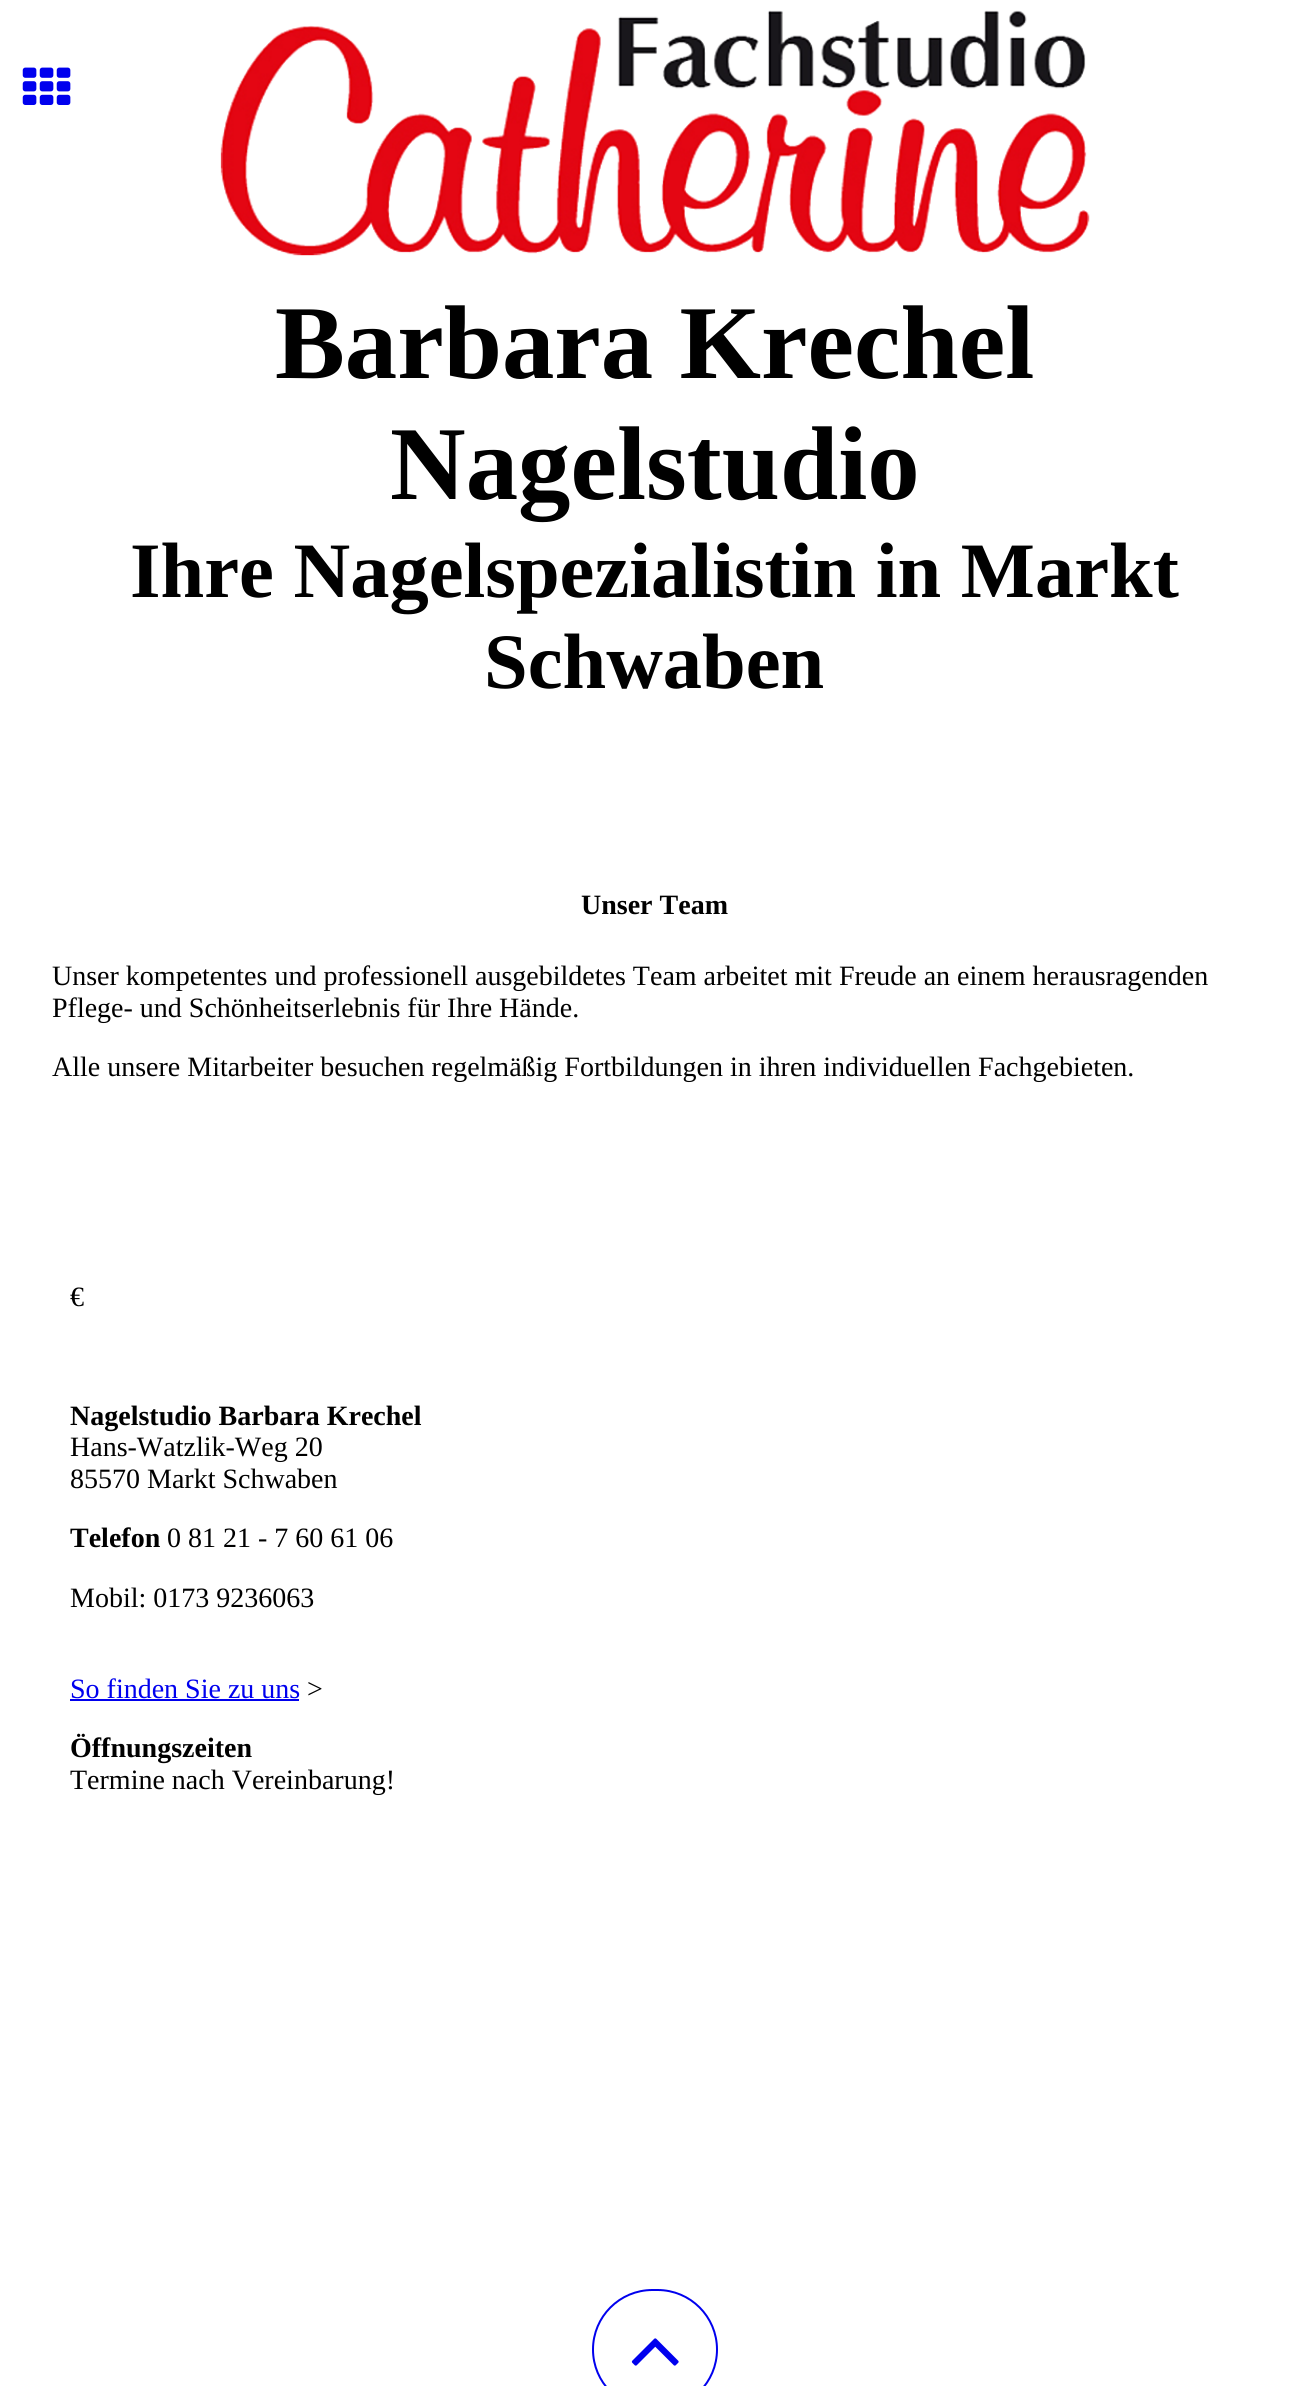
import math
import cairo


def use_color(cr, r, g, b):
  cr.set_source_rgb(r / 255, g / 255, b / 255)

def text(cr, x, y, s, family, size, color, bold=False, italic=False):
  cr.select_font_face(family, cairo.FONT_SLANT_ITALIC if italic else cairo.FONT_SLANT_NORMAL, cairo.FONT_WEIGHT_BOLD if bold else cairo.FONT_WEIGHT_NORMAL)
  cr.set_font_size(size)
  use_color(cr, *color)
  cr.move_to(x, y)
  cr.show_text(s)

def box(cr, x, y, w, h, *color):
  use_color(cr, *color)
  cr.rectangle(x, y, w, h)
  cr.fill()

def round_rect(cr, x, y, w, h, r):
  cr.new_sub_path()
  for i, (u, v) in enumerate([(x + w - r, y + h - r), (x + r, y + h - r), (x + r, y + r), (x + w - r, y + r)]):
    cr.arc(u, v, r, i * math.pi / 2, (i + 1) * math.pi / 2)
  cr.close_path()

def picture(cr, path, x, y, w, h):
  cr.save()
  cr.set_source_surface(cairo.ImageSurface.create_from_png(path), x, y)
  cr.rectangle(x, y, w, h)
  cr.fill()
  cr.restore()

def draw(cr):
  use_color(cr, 255, 255, 255)
  cr.paint()
  picture(cr, "img_01.png", 22, 67, 49, 38)
  picture(cr, "img_02.png", 220, 10, 870, 246)
  box(cr, 70, 1699, 229, 2, 0, 0, 238)
  round_rect(cr, 593, 2290, 124, 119, 59.5)
  cr.stroke()
  picture(cr, "img_03.png", 631, 2338, 48, 28)
  text(cr, 275, 378, "Barbara Krechel", "Liberation Serif", 104.75, (0, 0, 0), bold=True)
  text(cr, 390, 499, "Nagelstudio", "Liberation Serif", 104.75, (0, 0, 0), bold=True)
  text(cr, 130, 597, "Ihre Nagelspezialistin in Markt", "Liberation Serif", 78.5, (0, 0, 0), bold=True)
  text(cr, 484, 688, "Schwaben", "Liberation Serif", 78.5, (0, 0, 0), bold=True)
  text(cr, 581, 914, "Unser Team", "Liberation Serif", 28, (0, 0, 0), bold=True)
  text(cr, 52, 985, "Unser kompetentes und professionell ausgebildetes Team arbeitet mit Freude an einem herausragenden", "Liberation Serif", 28, (0, 0, 0))
  text(cr, 52, 1017, "Pflege- und Schönheitserlebnis für Ihre Hände.", "Liberation Serif", 28, (0, 0, 0))
  text(cr, 52, 1076, "Alle unsere Mitarbeiter besuchen regelmäßig Fortbildungen in ihren individuellen Fachgebieten.", "Liberation Serif", 28, (0, 0, 0))
  text(cr, 70, 1306, "€", "Liberation Serif", 28, (0, 0, 0))
  text(cr, 70, 1425, "Nagelstudio Barbara Krechel", "Liberation Serif", 28, (0, 0, 0), bold=True)
  text(cr, 70, 1456, "Hans-Watzlik-Weg 20", "Liberation Serif", 28, (0, 0, 0))
  text(cr, 70, 1488, "85570 Markt Schwaben", "Liberation Serif", 28, (0, 0, 0))
  text(cr, 70, 1547, "Telefon", "Liberation Serif", 28, (0, 0, 0), bold=True)
  text(cr, 167, 1547, "0 81 21 - 7 60 61 06", "Liberation Serif", 28, (0, 0, 0))
  text(cr, 70, 1607, "Mobil: 0173 9236063", "Liberation Serif", 28, (0, 0, 0))
  text(cr, 70, 1698, "So finden Sie zu uns", "Liberation Serif", 28, (0, 0, 238))
  text(cr, 307, 1698, ">", "Liberation Serif", 28, (0, 0, 0))
  text(cr, 70, 1757, "Öffnungszeiten", "Liberation Serif", 28, (0, 0, 0), bold=True)
  text(cr, 70, 1789, "Termine nach Vereinbarung!", "Liberation Serif", 28, (0, 0, 0))


surface = cairo.ImageSurface(cairo.FORMAT_RGB24, 1309, 2386)
cr = cairo.Context(surface)
options = cairo.FontOptions()
options.set_hint_metrics(cairo.HINT_METRICS_OFF)
options.set_hint_style(cairo.HINT_STYLE_NONE)
cr.set_font_options(options)
cr.set_miter_limit(4)
draw(cr)
surface.write_to_png("out.png")
